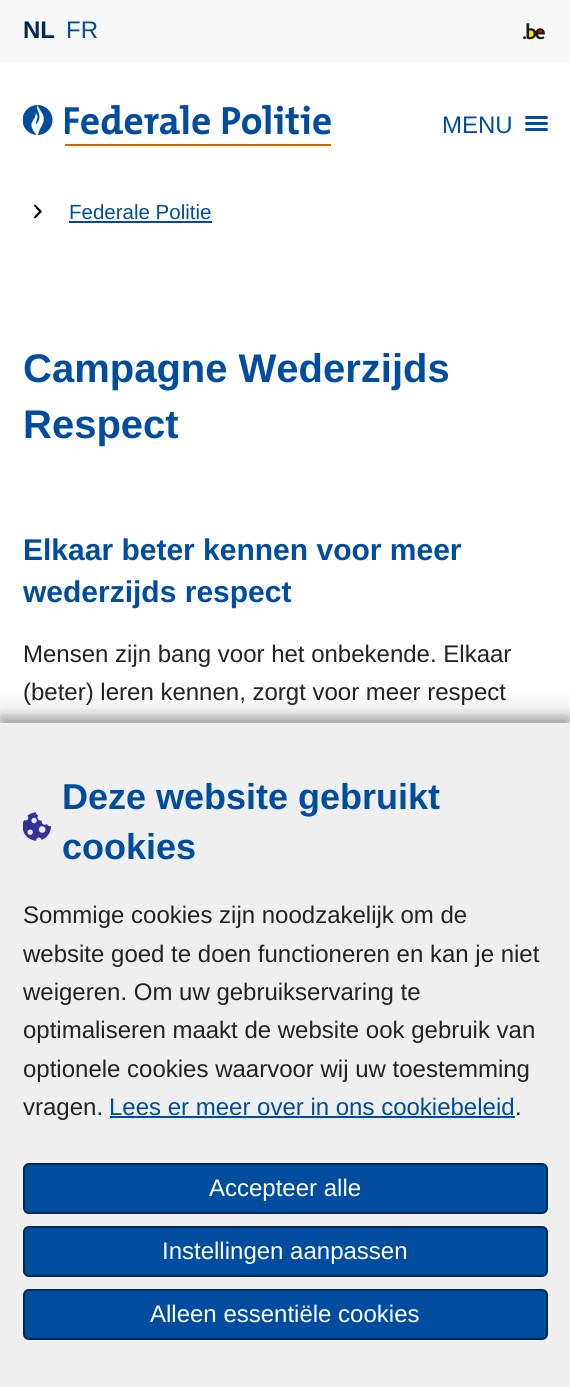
import math
import cairo


def use_color(cr, r, g, b):
  cr.set_source_rgb(r / 255, g / 255, b / 255)

def text(cr, x, y, s, family, size, color, bold=False, italic=False):
  cr.select_font_face(family, cairo.FONT_SLANT_ITALIC if italic else cairo.FONT_SLANT_NORMAL, cairo.FONT_WEIGHT_BOLD if bold else cairo.FONT_WEIGHT_NORMAL)
  cr.set_font_size(size)
  use_color(cr, *color)
  cr.move_to(x, y)
  cr.show_text(s)

def box(cr, x, y, w, h, *color):
  use_color(cr, *color)
  cr.rectangle(x, y, w, h)
  cr.fill()

def round_rect(cr, x, y, w, h, r):
  cr.new_sub_path()
  for i, (u, v) in enumerate([(x + w - r, y + h - r), (x + r, y + h - r), (x + r, y + r), (x + w - r, y + r)]):
    cr.arc(u, v, r, i * math.pi / 2, (i + 1) * math.pi / 2)
  cr.close_path()

def shadow(cr, x, y, w, h, r, blur, alpha):
  cr.push_group_with_content(cairo.CONTENT_ALPHA)
  cr.set_operator(cairo.OPERATOR_SOURCE)
  for i in range(15, -16, -2):
    e = blur * i / 6
    if min(w, h) + 2 * e > 0:
      cr.set_source_rgba(0, 0, 0, alpha * math.erfc((i - 1) / 8.5) / 2)
      round_rect(cr, x - e, y - e, w + 2 * e, h + 2 * e, max(0, min(r + e + blur * .6, min(w, h) / 2 + e)))
      cr.fill()
  cr.mask(cr.pop_group())

def picture(cr, path, x, y, w, h):
  cr.save()
  cr.set_source_surface(cairo.ImageSurface.create_from_png(path), x, y)
  cr.rectangle(x, y, w, h)
  cr.fill()
  cr.restore()

def draw(cr):
  use_color(cr, 255, 255, 255)
  cr.paint()
  box(cr, 0, 0, 570, 62, 248, 248, 248)
  picture(cr, "img_01.png", 523, 23, 22, 17)
  picture(cr, "img_02.png", 23, 105, 30, 30)
  picture(cr, "img_03.png", 65, 105, 266, 41)
  use_color(cr, 0, 77, 159)
  round_rect(cr, 525, 122, 23, 3, 1.5)
  cr.fill()
  round_rect(cr, 525, 116, 23, 3, 1.5)
  cr.fill()
  round_rect(cr, 525, 128, 23, 3, 1.5)
  cr.fill()
  picture(cr, "img_04.png", 34, 204, 8, 15)
  box(cr, 69, 221, 143, 2, 0, 77, 159)
  use_color(cr, 0, 0, 0)
  shadow(cr, 0, 716, 570, 664, 0, 4.5, 0.23)
  shadow(cr, 0, 716, 570, 664, 0, 15, 0.19)
  box(cr, 0, 723, 570, 664, 239, 239, 239)
  picture(cr, "img_05.png", 23, 812, 28, 29)
  box(cr, 110, 1116, 405, 2, 0, 77, 159)
  round_rect(cr, 24, 1164, 523, 49, 5)
  cr.fill_preserve()
  use_color(cr, 0, 40, 83)
  cr.stroke()
  use_color(cr, 0, 77, 159)
  round_rect(cr, 24, 1227, 523, 49, 5)
  cr.fill_preserve()
  use_color(cr, 0, 40, 83)
  cr.stroke()
  use_color(cr, 0, 77, 159)
  round_rect(cr, 24, 1290, 523, 49, 5)
  cr.fill_preserve()
  use_color(cr, 0, 40, 83)
  cr.stroke()
  text(cr, 23, 38, "NL", "Liberation Sans", 24, (0, 40, 83), bold=True)
  text(cr, 66, 38, "FR", "Liberation Sans", 24, (0, 77, 159))
  text(cr, 442, 133, "MENU", "Liberation Sans", 24, (0, 77, 159))
  text(cr, 69, 219, "Federale Politie", "Liberation Sans", 20.5, (0, 77, 159))
  text(cr, 23, 382, "Campagne Wederzijds", "Liberation Sans", 40, (0, 77, 159), bold=True)
  text(cr, 23, 438, "Respect", "Liberation Sans", 40, (0, 77, 159), bold=True)
  text(cr, 23, 560, "Elkaar beter kennen voor meer", "Liberation Sans", 30, (0, 77, 159), bold=True)
  text(cr, 23, 602, "wederzijds respect", "Liberation Sans", 30, (0, 77, 159), bold=True)
  text(cr, 23, 662, "Mensen zijn bang voor het onbekende. Elkaar", "Liberation Sans", 24, (34, 34, 34))
  text(cr, 23, 700, "(beter) leren kennen, zorgt voor meer respect", "Liberation Sans", 24, (34, 34, 34))
  text(cr, 62, 809, "Deze website gebruikt", "Liberation Sans", 36, (0, 77, 159), bold=True)
  text(cr, 62, 859, "cookies", "Liberation Sans", 36, (0, 77, 159), bold=True)
  text(cr, 23, 923, "Sommige cookies zijn noodzakelijk om de", "Liberation Sans", 24, (34, 34, 34))
  text(cr, 23, 962, "website goed te doen functioneren en kan je niet", "Liberation Sans", 24, (34, 34, 34))
  text(cr, 23, 1000, "weigeren. Om uw gebruikservaring te", "Liberation Sans", 24, (34, 34, 34))
  text(cr, 23, 1038, "optimaliseren maakt de website ook gebruik van", "Liberation Sans", 24, (34, 34, 34))
  text(cr, 23, 1077, "optionele cookies waarvoor wij uw toestemming", "Liberation Sans", 24, (34, 34, 34))
  text(cr, 23, 1115, "vragen.", "Liberation Sans", 24, (34, 34, 34))
  text(cr, 109, 1115, "Lees er meer over in ons cookiebeleid", "Liberation Sans", 24, (0, 77, 159))
  text(cr, 515, 1115, ".", "Liberation Sans", 24, (34, 34, 34))
  text(cr, 209, 1196, "Accepteer alle", "Liberation Sans", 24, (255, 255, 255))
  text(cr, 162, 1259, "Instellingen aanpassen", "Liberation Sans", 24, (255, 255, 255))
  text(cr, 150, 1322, "Alleen essentiële cookies", "Liberation Sans", 24, (255, 255, 255))


surface = cairo.ImageSurface(cairo.FORMAT_RGB24, 570, 1387)
cr = cairo.Context(surface)
options = cairo.FontOptions()
options.set_hint_metrics(cairo.HINT_METRICS_OFF)
options.set_hint_style(cairo.HINT_STYLE_NONE)
cr.set_font_options(options)
cr.set_miter_limit(4)
draw(cr)
surface.write_to_png("out.png")
